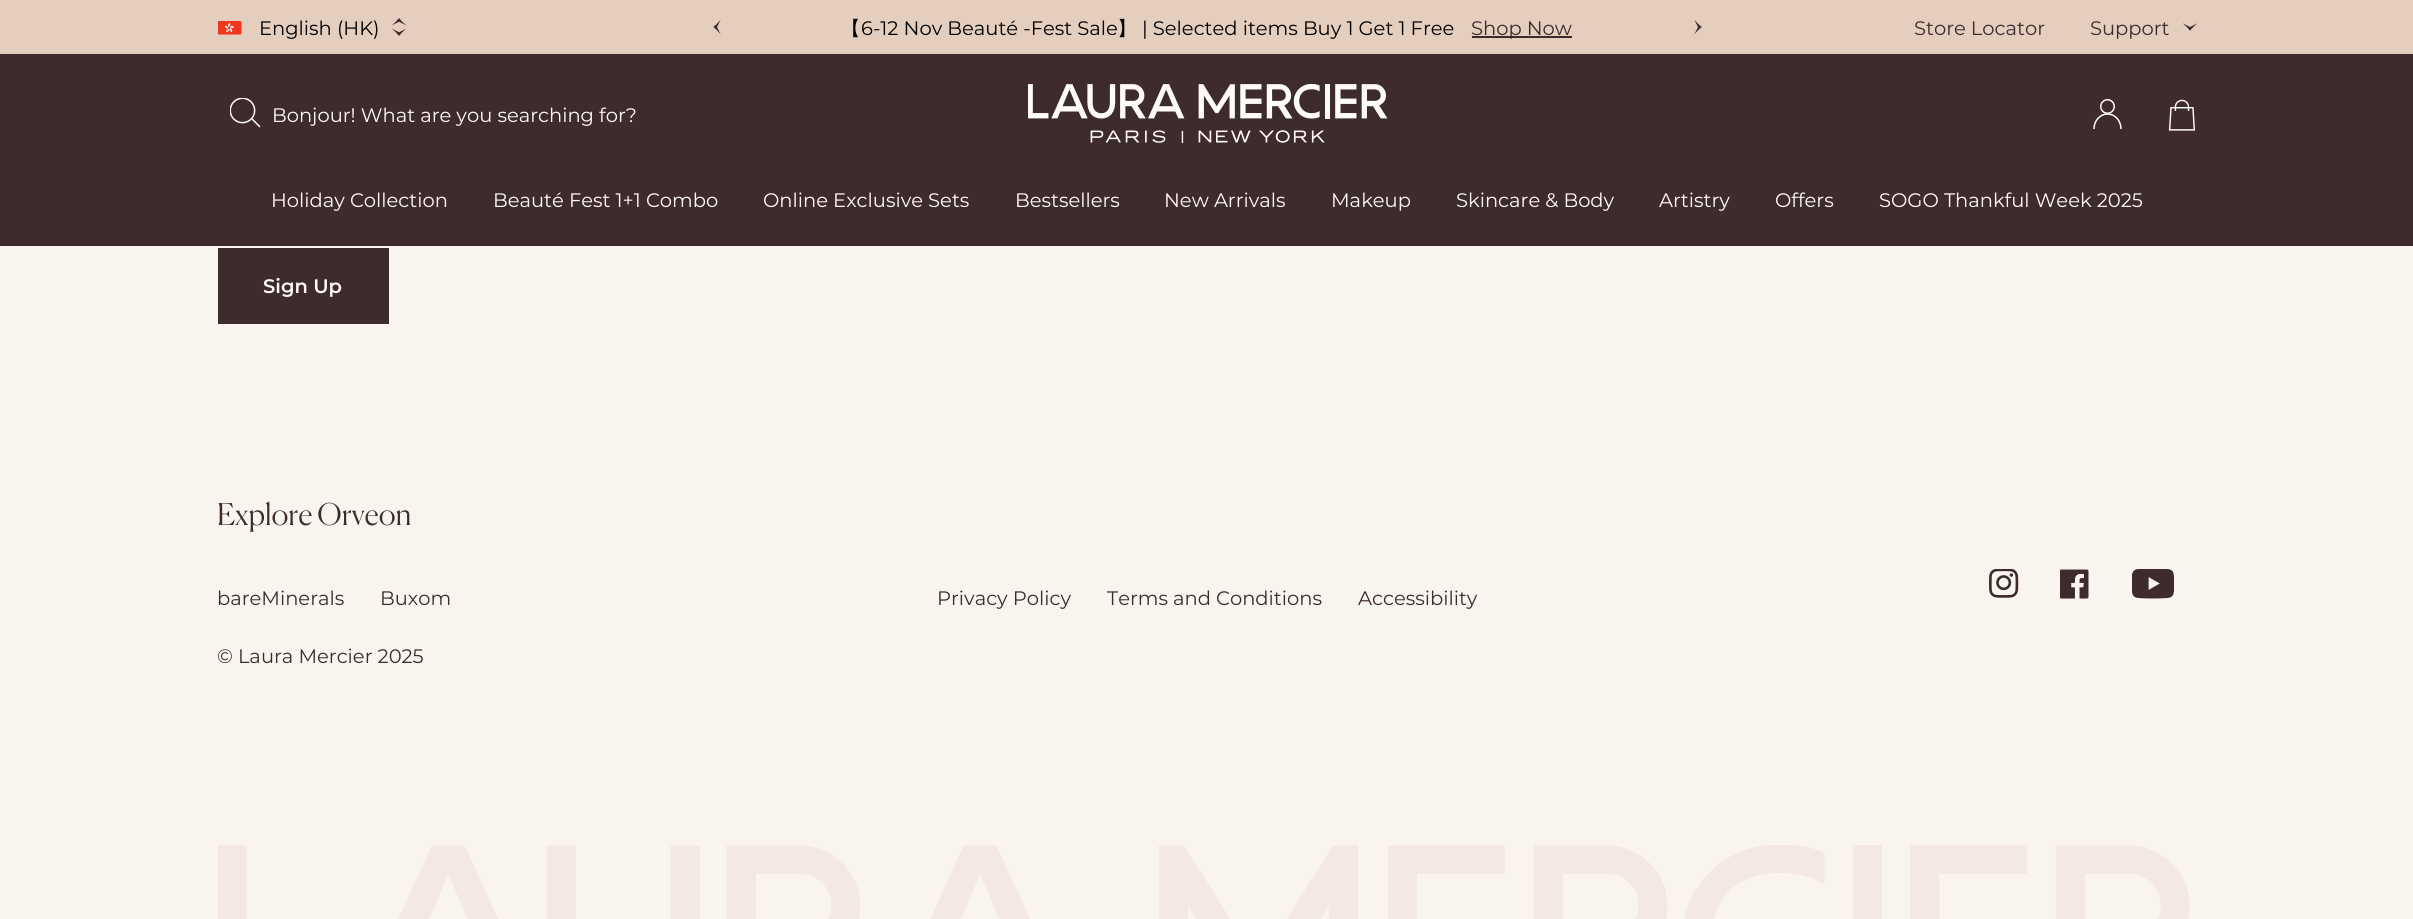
import math
import cairo


def use_color(cr, r, g, b):
  cr.set_source_rgb(r / 255, g / 255, b / 255)

def text(cr, x, y, s, family, size, color, bold=False, italic=False):
  cr.select_font_face(family, cairo.FONT_SLANT_ITALIC if italic else cairo.FONT_SLANT_NORMAL, cairo.FONT_WEIGHT_BOLD if bold else cairo.FONT_WEIGHT_NORMAL)
  cr.set_font_size(size)
  use_color(cr, *color)
  cr.move_to(x, y)
  cr.show_text(s)

def box(cr, x, y, w, h, *color):
  use_color(cr, *color)
  cr.rectangle(x, y, w, h)
  cr.fill()

def picture(cr, path, x, y, w, h):
  cr.save()
  cr.set_source_surface(cairo.ImageSurface.create_from_png(path), x, y)
  cr.rectangle(x, y, w, h)
  cr.fill()
  cr.restore()

def draw(cr):
  use_color(cr, 250, 244, 239)
  cr.paint()
  box(cr, 0, 0, 2413, 54, 228, 206, 190)
  picture(cr, "img_01.png", 218, 21, 24, 14)
  picture(cr, "img_02.png", 392, 18, 15, 18)
  picture(cr, "img_03.png", 713, 20, 8, 15)
  box(cr, 1472, 36, 100, 2, 62, 43, 46)
  picture(cr, "img_04.png", 1694, 20, 8, 15)
  picture(cr, "img_05.png", 2183, 23, 15, 8)
  box(cr, 0, 54, 2413, 192, 62, 43, 46)
  picture(cr, "img_06.png", 230, 98, 31, 30)
  picture(cr, "img_07.png", 1028, 84, 360, 60)
  picture(cr, "img_08.png", 2093, 99, 29, 30)
  picture(cr, "img_09.png", 2168, 99, 28, 32)
  box(cr, 218, 248, 171, 76, 62, 43, 46)
  picture(cr, "img_10.png", 1989, 569, 30, 29)
  picture(cr, "img_11.png", 2060, 569, 29, 30)
  picture(cr, "img_12.png", 2132, 569, 42, 30)
  picture(cr, "img_13.png", 218, 845, 1972, 74)
  text(cr, 259, 35, "English (HK)", "Montserrat", 19.5, (0, 0, 0))
  text(cr, 841, 35, "【", "WenQuanYi Zen Hei Medium", 19.5, (0, 0, 0))
  text(cr, 861, 35, "6-12 Nov Beauté -Fest Sale", "Montserrat", 19.5, (0, 0, 0))
  text(cr, 1117, 35, "】", "WenQuanYi Zen Hei Medium", 19.5, (0, 0, 0))
  text(cr, 1142, 35, "| Selected items Buy 1 Get 1 Free", "Montserrat", 19.5, (0, 0, 0))
  text(cr, 1471, 35, "Shop Now", "Montserrat", 19.5, (62, 43, 46))
  text(cr, 1914, 35, "Store Locator", "Montserrat", 19.5, (62, 43, 46))
  text(cr, 2090, 35, "Support", "Montserrat", 19.5, (62, 43, 46))
  text(cr, 272, 122, "Bonjour! What are you searching for?", "Montserrat", 19.5, (255, 251, 247))
  text(cr, 271, 207, "Holiday Collection", "Montserrat", 19.5, (255, 251, 247))
  text(cr, 493, 207, "Beauté Fest 1+1 Combo", "Montserrat", 19.5, (255, 251, 247))
  text(cr, 763, 207, "Online Exclusive Sets", "Montserrat", 19.5, (255, 251, 247))
  text(cr, 1015, 207, "Bestsellers", "Montserrat", 19.5, (255, 251, 247))
  text(cr, 1164, 207, "New Arrivals", "Montserrat", 19.5, (255, 251, 247))
  text(cr, 1331, 207, "Makeup", "Montserrat", 19.5, (255, 251, 247))
  text(cr, 1456, 207, "Skincare & Body", "Montserrat", 19.5, (255, 251, 247))
  text(cr, 1659, 207, "Artistry", "Montserrat", 19.5, (255, 251, 247))
  text(cr, 1775, 207, "Offers", "Montserrat", 19.5, (255, 251, 247))
  text(cr, 1879, 207, "SOGO Thankful Week 2025", "Montserrat", 19.5, (255, 251, 247))
  text(cr, 263, 293, "Sign Up", "Montserrat SemiBold", 19.5, (255, 251, 247))
  text(cr, 217, 525, "Explore Orveon", "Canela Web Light", 30, (62, 43, 46))
  text(cr, 217, 605, "bareMinerals", "Montserrat", 19.5, (62, 43, 46))
  text(cr, 380, 605, "Buxom", "Montserrat", 19.5, (62, 43, 46))
  text(cr, 937, 605, "Privacy Policy", "Montserrat", 19.5, (62, 43, 46))
  text(cr, 1107, 605, "Terms and Conditions", "Montserrat", 19.5, (62, 43, 46))
  text(cr, 1358, 605, "Accessibility", "Montserrat", 19.5, (62, 43, 46))
  text(cr, 217, 663, "© Laura Mercier 2025", "Montserrat", 19.5, (62, 43, 46))


surface = cairo.ImageSurface(cairo.FORMAT_RGB24, 2413, 919)
cr = cairo.Context(surface)
options = cairo.FontOptions()
options.set_hint_metrics(cairo.HINT_METRICS_OFF)
options.set_hint_style(cairo.HINT_STYLE_NONE)
cr.set_font_options(options)
cr.set_miter_limit(4)
draw(cr)
surface.write_to_png("out.png")
